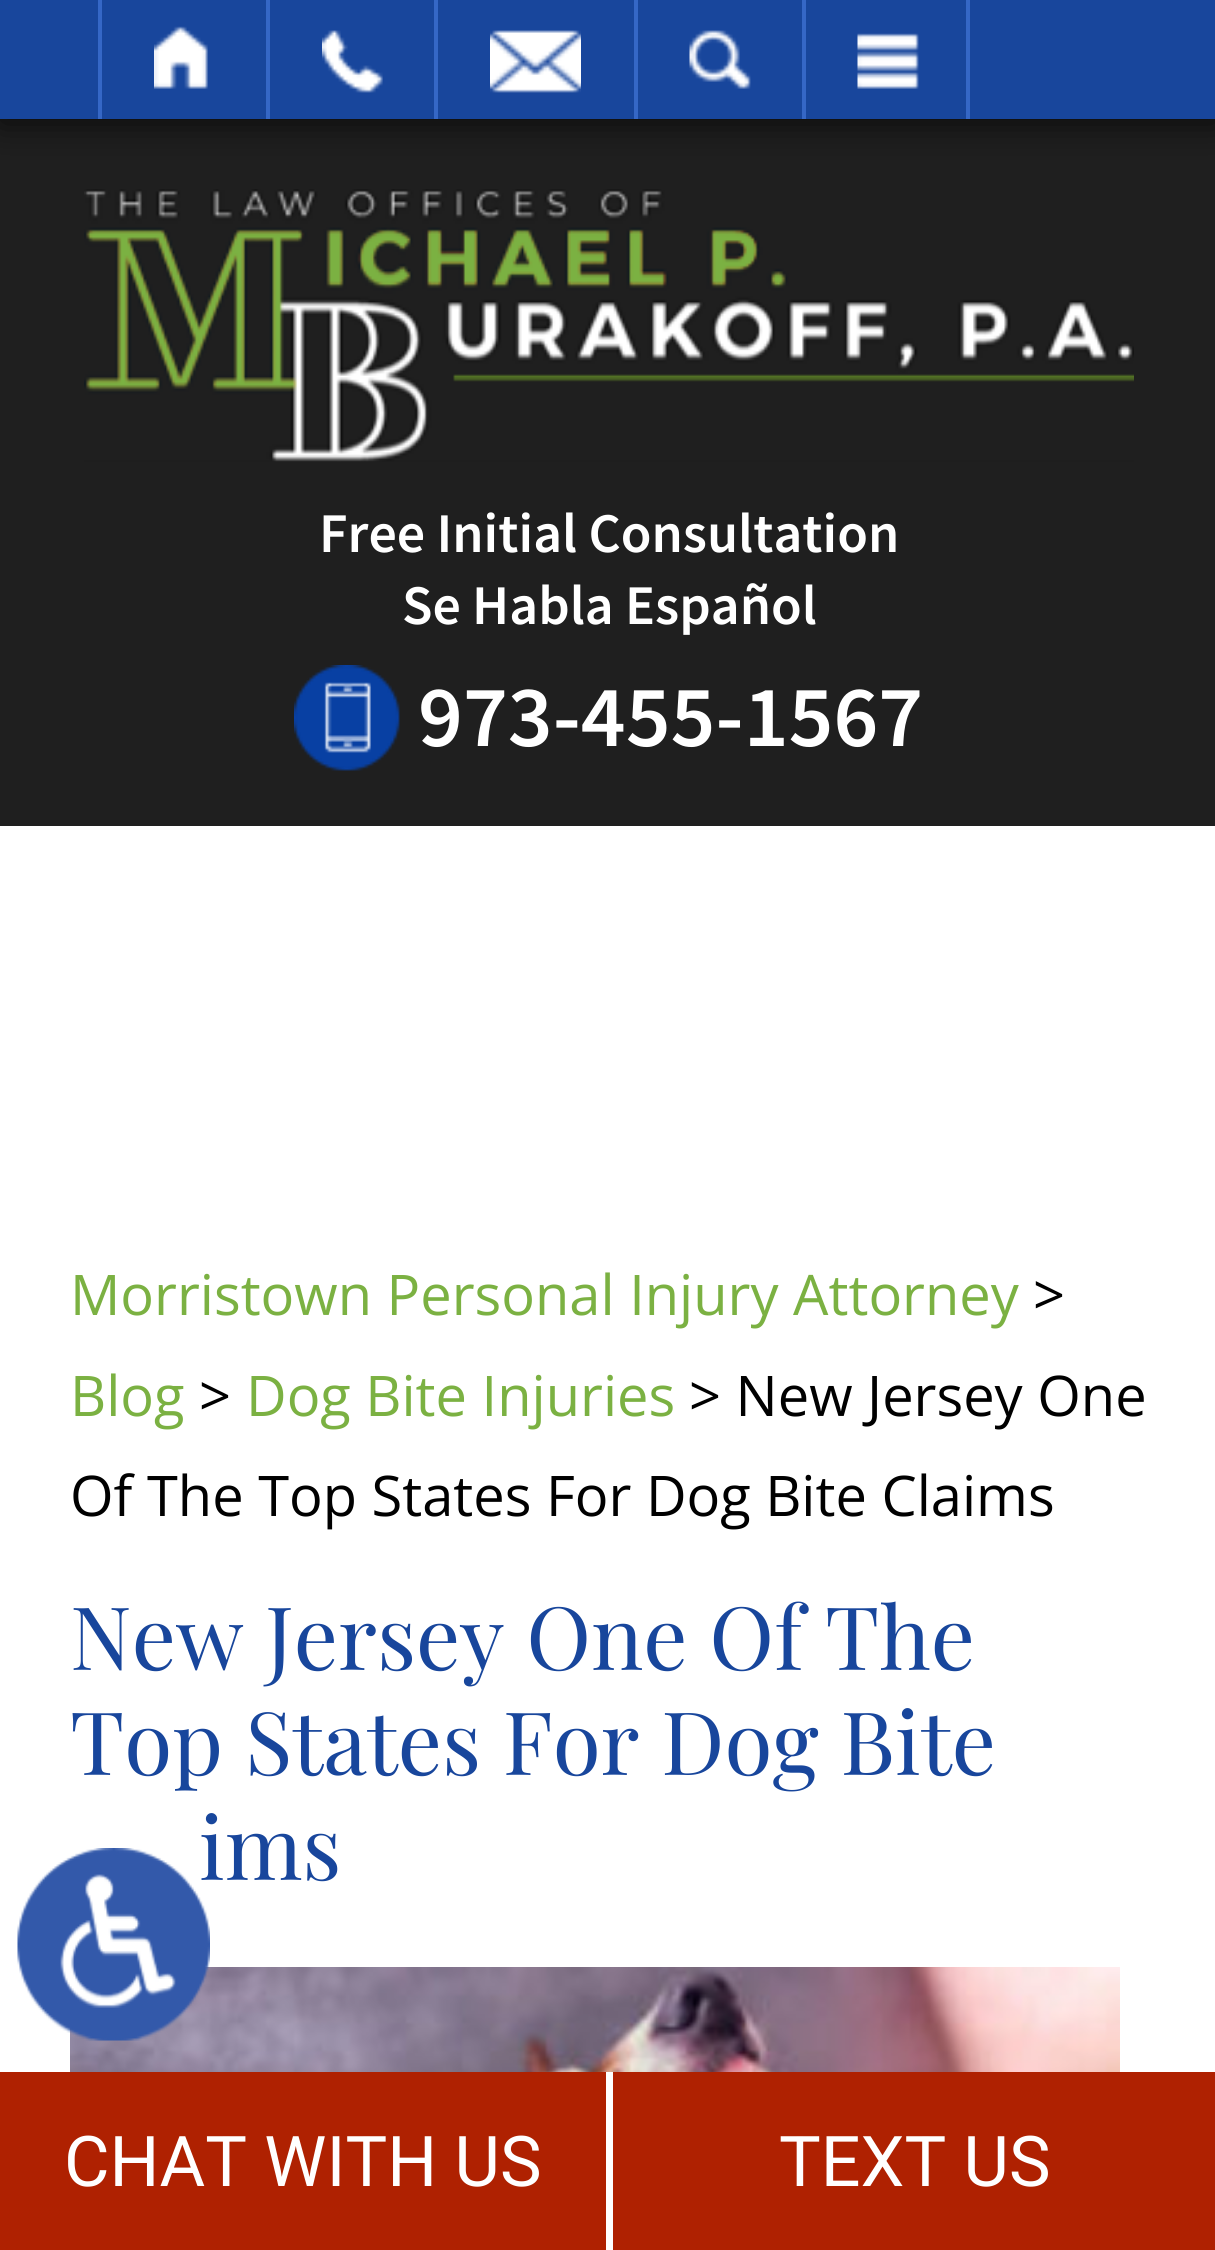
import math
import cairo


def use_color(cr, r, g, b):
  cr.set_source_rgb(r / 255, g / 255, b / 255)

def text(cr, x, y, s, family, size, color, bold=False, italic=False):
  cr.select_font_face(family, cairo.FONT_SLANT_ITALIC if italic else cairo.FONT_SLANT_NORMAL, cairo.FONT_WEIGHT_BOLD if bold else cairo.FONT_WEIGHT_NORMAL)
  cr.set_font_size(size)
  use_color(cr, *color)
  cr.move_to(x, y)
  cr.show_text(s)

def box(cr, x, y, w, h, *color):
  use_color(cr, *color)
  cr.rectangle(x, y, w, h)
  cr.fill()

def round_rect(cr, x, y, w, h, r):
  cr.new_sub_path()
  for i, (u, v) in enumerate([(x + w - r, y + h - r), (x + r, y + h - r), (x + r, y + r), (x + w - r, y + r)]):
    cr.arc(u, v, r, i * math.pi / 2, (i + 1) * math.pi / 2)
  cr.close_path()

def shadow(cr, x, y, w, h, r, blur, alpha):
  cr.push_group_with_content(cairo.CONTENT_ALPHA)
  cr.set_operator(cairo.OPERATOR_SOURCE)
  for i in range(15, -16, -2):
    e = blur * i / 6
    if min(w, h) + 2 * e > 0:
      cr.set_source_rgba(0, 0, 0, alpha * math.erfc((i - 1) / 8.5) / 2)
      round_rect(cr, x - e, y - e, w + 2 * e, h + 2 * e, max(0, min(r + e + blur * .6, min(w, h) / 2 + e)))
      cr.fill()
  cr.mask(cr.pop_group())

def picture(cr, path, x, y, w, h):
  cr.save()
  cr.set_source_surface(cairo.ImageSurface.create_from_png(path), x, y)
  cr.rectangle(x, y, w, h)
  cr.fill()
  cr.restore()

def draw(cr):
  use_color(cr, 255, 255, 255)
  cr.paint()
  box(cr, 0, 119, 1215, 707, 31, 31, 31)
  use_color(cr, 0, 0, 0)
  shadow(cr, 0, 4, 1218, 119, 0, 17.5, 0.7)
  box(cr, 0, 0, 1215, 119, 24, 70, 156)
  box(cr, 266, 0, 4, 119, 53, 103, 198)
  box(cr, 98, 0, 4, 119, 53, 103, 198)
  picture(cr, "img_01.png", 154, 26, 54, 63)
  box(cr, 434, 0, 4, 119, 53, 103, 198)
  picture(cr, "img_02.png", 322, 30, 61, 63)
  box(cr, 634, 0, 4, 119, 53, 103, 198)
  picture(cr, "img_03.png", 490, 30, 91, 63)
  box(cr, 802, 0, 4, 119, 53, 103, 198)
  picture(cr, "img_04.png", 689, 30, 62, 59)
  box(cr, 966, 0, 4, 119, 53, 103, 198)
  picture(cr, "img_05.png", 857, 33, 62, 56)
  picture(cr, "img_06.png", 84, 189, 1050, 273)
  picture(cr, "img_07.png", 294, 665, 106, 106)
  picture(cr, "img_08.png", 70, 1967, 1050, 105)
  box(cr, 0, 2072, 606, 178, 175, 33, 1)
  box(cr, 613, 2072, 602, 178, 175, 33, 1)
  text(cr, 319, 552, "Free Initial Consultation", "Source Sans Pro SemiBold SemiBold", 56, (255, 255, 255))
  text(cr, 402, 624, "Se Habla Español", "Source Sans Pro SemiBold SemiBold", 56, (255, 255, 255))
  text(cr, 418, 746, "973-455-1567", "Source Sans Pro SemiBold SemiBold", 87.5, (255, 255, 255))
  text(cr, 70, 1315, "Morristown Personal Injury Attorney", "Open Sans", 56, (123, 177, 66))
  text(cr, 1033, 1315, ">", "Open Sans", 56, (0, 0, 0))
  text(cr, 70, 1416, "Blog", "Open Sans", 56, (123, 177, 66))
  text(cr, 199, 1416, ">", "Open Sans", 56, (0, 0, 0))
  text(cr, 246, 1416, "Dog Bite Injuries", "Open Sans", 56, (123, 177, 66))
  text(cr, 689, 1416, "> New Jersey One", "Open Sans", 56, (0, 0, 0))
  text(cr, 70, 1516, "Of The Top States For Dog Bite Claims", "Open Sans", 56, (0, 0, 0))
  text(cr, 70, 1670, "New Jersey One Of The", "Playfair Display", 87.5, (24, 70, 156))
  text(cr, 70, 1775, "Top States For Dog Bite", "Playfair Display", 87.5, (24, 70, 156))
  text(cr, 199, 1880, "ims", "Playfair Display", 87.5, (24, 70, 156))
  picture(cr, "img_09.png", 17, 1848, 193, 193)
  text(cr, 64, 2186, "CHAT WITH US", "Roboto", 70, (255, 255, 255))
  text(cr, 779, 2186, "TEXT US", "Roboto", 70, (255, 255, 255))


surface = cairo.ImageSurface(cairo.FORMAT_RGB24, 1215, 2250)
cr = cairo.Context(surface)
options = cairo.FontOptions()
options.set_hint_metrics(cairo.HINT_METRICS_OFF)
options.set_hint_style(cairo.HINT_STYLE_NONE)
cr.set_font_options(options)
cr.set_miter_limit(4)
draw(cr)
surface.write_to_png("out.png")
